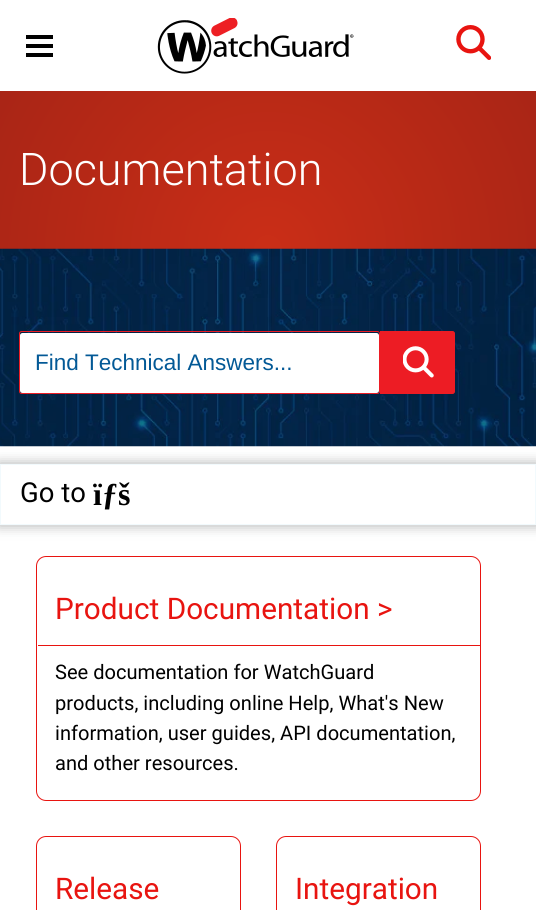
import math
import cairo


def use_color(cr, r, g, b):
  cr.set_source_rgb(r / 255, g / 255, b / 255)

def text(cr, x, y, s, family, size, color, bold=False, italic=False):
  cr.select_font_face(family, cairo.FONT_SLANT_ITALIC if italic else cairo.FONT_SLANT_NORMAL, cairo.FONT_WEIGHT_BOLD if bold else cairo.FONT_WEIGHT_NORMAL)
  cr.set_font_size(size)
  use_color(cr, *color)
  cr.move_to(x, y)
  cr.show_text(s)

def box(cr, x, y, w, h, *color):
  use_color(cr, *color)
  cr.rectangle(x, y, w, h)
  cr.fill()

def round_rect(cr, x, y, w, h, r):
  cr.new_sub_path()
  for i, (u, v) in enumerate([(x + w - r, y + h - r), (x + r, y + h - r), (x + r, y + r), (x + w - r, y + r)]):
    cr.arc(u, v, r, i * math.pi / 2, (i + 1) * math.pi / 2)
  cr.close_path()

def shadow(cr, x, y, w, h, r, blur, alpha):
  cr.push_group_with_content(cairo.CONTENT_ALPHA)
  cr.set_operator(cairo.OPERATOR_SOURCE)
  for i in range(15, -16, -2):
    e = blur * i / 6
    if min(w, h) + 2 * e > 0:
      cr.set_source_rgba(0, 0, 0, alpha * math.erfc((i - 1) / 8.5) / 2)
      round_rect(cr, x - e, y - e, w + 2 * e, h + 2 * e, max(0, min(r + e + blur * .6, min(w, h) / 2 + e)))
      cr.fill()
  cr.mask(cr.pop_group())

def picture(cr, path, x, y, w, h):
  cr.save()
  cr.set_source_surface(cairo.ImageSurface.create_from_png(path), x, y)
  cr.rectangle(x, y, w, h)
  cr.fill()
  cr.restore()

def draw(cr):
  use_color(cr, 255, 255, 255)
  cr.paint()
  box(cr, 26, 35, 27, 4, 0, 0, 0)
  box(cr, 26, 44, 27, 4, 0, 0, 0)
  box(cr, 26, 53, 27, 4, 0, 0, 0)
  picture(cr, "img_01.png", 157, 18, 197, 56)
  picture(cr, "img_02.png", 456, 25, 35, 35)
  gradient = cairo.RadialGradient(268, 249, 0, 268, 249, 311)
  gradient.add_color_stop_rgba(0, 0.792, 0.18, 0.09, 1)
  gradient.add_color_stop_rgba(1, 0.663, 0.145, 0.086, 1)
  cr.set_source(gradient)
  cr.rectangle(0, 91, 536, 158)
  cr.fill()
  picture(cr, "img_03.png", 0, 248, 536, 199)
  round_rect(cr, 19.5, 331.5, 360, 62, 2)
  use_color(cr, 237, 28, 36)
  cr.set_line_width(1)
  cr.stroke()
  use_color(cr, 255, 255, 255)
  round_rect(cr, 20, 333, 359, 60, 2.5)
  cr.fill()
  use_color(cr, 237, 28, 36)
  cr.new_path()
  cr.move_to(380.5, 331.5)
  cr.line_to(452.5, 331.5)
  cr.curve_to(453.5, 331.5, 454.5, 332.5, 454.5, 333.5)
  cr.line_to(454.5, 391.5)
  cr.curve_to(454.5, 392.5, 453.5, 393.5, 452.5, 393.5)
  cr.line_to(380.5, 393.5)
  cr.close_path()
  cr.fill_preserve()
  cr.stroke()
  picture(cr, "img_04.png", 403, 346, 31, 32)
  cr.save()
  cr.set_fill_rule(cairo.FILL_RULE_EVEN_ODD)
  cr.new_path()
  cr.move_to(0, 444)
  cr.line_to(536, 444)
  cr.line_to(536, 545)
  cr.line_to(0, 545)
  cr.close_path()
  cr.move_to(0, 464)
  cr.line_to(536, 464)
  cr.line_to(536, 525)
  cr.line_to(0, 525)
  cr.close_path()
  cr.clip()
  use_color(cr, 179, 181, 181)
  shadow(cr, -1, 463, 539, 63, 0, 6, 1)
  cr.restore()
  cr.rectangle(0.5, 464.5, 535, 60)
  use_color(cr, 242, 250, 253)
  cr.stroke()
  round_rect(cr, 36.5, 556.5, 444, 244, 9.5)
  use_color(cr, 232, 20, 16)
  cr.stroke()
  box(cr, 38, 645, 442, 1, 232, 20, 16)
  round_rect(cr, 36.5, 836.5, 204, 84, 9.5)
  cr.stroke()
  round_rect(cr, 276.5, 836.5, 204, 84, 9.5)
  cr.stroke()
  text(cr, 19, 185, "Documentation", "Roboto Light", 45, (255, 255, 255))
  text(cr, 35, 370, "Find Technical Answers...", "Liberation Sans", 22.5, (3, 89, 150))
  text(cr, 20, 502, "Go to", "Roboto", 27.5, (0, 0, 0))
  text(cr, 93, 505, "ïƒš", "Liberation Serif", 32, (0, 0, 0), bold=True)
  text(cr, 55, 619, "Product Documentation", "Roboto", 29.75, (232, 20, 16))
  text(cr, 377, 619, ">", "Roboto", 29.75, (232, 20, 16))
  text(cr, 55, 679, "See documentation for WatchGuard", "Roboto", 20.1, (0, 0, 0))
  text(cr, 55, 710, "products, including online Help, What's New", "Roboto", 20.1, (0, 0, 0))
  text(cr, 55, 740, "information, user guides, API documentation,", "Roboto", 20.1, (0, 0, 0))
  text(cr, 55, 770, "and other resources.", "Roboto", 20.1, (0, 0, 0))
  text(cr, 55, 899, "Release", "Roboto", 29.75, (232, 20, 16))
  text(cr, 295, 899, "Integration", "Roboto", 29.75, (232, 20, 16))


surface = cairo.ImageSurface(cairo.FORMAT_RGB24, 536, 910)
cr = cairo.Context(surface)
options = cairo.FontOptions()
options.set_hint_metrics(cairo.HINT_METRICS_OFF)
options.set_hint_style(cairo.HINT_STYLE_NONE)
cr.set_font_options(options)
cr.set_miter_limit(4)
draw(cr)
surface.write_to_png("out.png")
